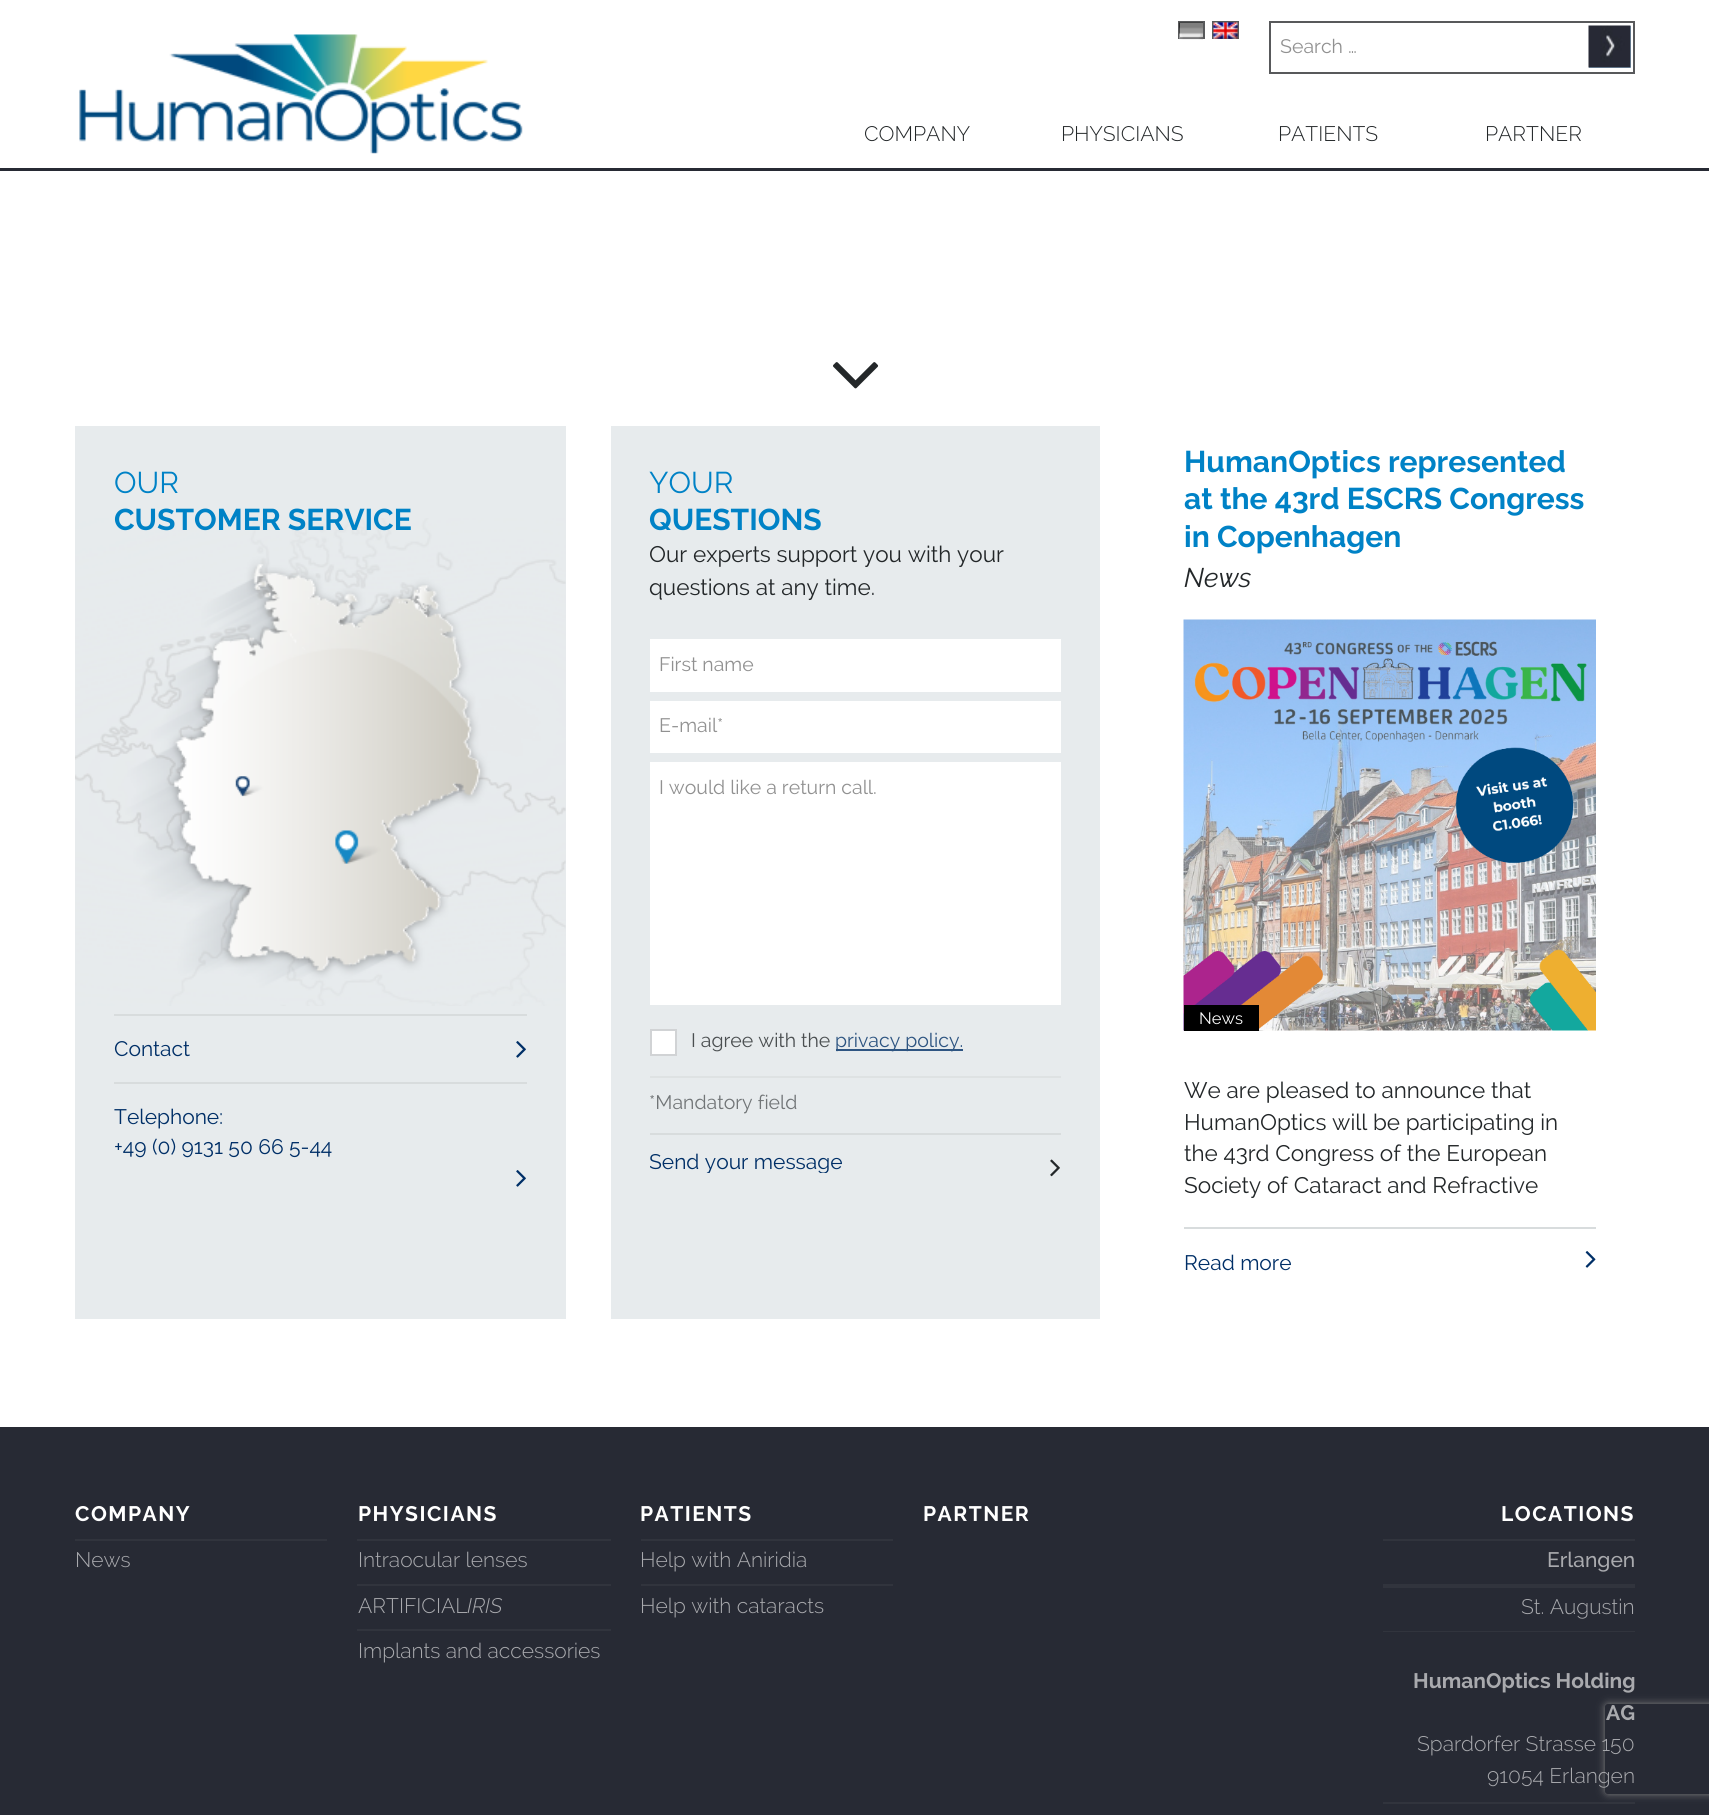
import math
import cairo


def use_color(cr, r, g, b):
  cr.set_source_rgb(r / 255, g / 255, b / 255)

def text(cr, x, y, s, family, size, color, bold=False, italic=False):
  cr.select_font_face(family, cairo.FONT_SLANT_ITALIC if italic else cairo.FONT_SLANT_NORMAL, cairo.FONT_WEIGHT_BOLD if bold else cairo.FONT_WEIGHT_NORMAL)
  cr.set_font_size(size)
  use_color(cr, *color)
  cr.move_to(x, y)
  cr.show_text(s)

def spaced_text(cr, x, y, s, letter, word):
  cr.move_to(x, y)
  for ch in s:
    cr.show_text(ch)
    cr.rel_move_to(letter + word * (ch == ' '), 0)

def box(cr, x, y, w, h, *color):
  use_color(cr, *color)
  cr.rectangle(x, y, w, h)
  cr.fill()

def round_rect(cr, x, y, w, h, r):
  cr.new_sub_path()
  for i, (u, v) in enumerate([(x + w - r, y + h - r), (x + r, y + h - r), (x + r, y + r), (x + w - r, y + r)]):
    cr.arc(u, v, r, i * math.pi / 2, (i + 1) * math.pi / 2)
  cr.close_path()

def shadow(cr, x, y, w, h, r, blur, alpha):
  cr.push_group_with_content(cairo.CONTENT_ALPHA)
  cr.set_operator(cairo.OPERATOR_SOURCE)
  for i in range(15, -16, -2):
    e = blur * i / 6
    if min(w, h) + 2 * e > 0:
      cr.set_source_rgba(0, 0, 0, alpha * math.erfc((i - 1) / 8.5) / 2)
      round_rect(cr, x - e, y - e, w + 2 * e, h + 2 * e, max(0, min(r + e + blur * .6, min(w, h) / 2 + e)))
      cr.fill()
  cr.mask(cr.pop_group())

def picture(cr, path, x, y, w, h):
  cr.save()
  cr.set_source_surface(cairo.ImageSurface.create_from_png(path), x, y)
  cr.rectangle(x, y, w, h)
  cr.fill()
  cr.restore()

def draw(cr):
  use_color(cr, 39, 42, 52)
  cr.paint()
  box(cr, 0, 0, 1709, 168, 255, 255, 255)
  picture(cr, "img_01.png", 79, 34, 444, 120)
  cr.rectangle(1179, 22, 25, 16)
  use_color(cr, 88, 89, 91)
  cr.stroke()
  picture(cr, "img_02.png", 1179, 22, 24, 18)
  cr.rectangle(1213, 22, 25, 16)
  cr.stroke()
  picture(cr, "img_03.png", 1213, 22, 25, 17)
  cr.rectangle(1270, 22, 364, 51)
  cr.stroke()
  box(cr, 1589, 26, 42, 42, 156, 194, 223)
  picture(cr, "img_04.png", 1588, 25, 43, 43)
  box(cr, 0, 171, 1709, 1256, 255, 255, 255)
  picture(cr, "img_05.png", 833, 362, 46, 27)
  box(cr, 75, 426, 491, 893, 231, 235, 237)
  picture(cr, "img_06.png", 75, 518, 491, 488)
  box(cr, 114, 1014, 413, 2, 216, 220, 221)
  picture(cr, "img_07.png", 516, 1041, 10, 17)
  box(cr, 114, 1082, 413, 2, 216, 220, 221)
  picture(cr, "img_07.png", 516, 1170, 10, 17)
  box(cr, 611, 426, 489, 893, 231, 235, 237)
  box(cr, 650, 639, 411, 53, 255, 255, 255)
  box(cr, 650, 701, 411, 52, 255, 255, 255)
  box(cr, 650, 762, 411, 243, 255, 255, 255)
  cr.rectangle(651, 1030, 25, 25)
  cr.fill_preserve()
  use_color(cr, 209, 211, 213)
  cr.stroke()
  box(cr, 836, 1049, 127, 2, 46, 85, 130)
  box(cr, 650, 1076, 411, 2, 222, 226, 227)
  box(cr, 650, 1133, 411, 2, 216, 220, 221)
  picture(cr, "img_08.png", 1050, 1159, 10, 18)
  picture(cr, "img_09.png", 1183, 619, 413, 412)
  box(cr, 1184, 1005, 75, 26, 0, 0, 0)
  box(cr, 1184, 1227, 412, 2, 216, 220, 221)
  picture(cr, "img_10.png", 1585, 1251, 11, 17)
  box(cr, 75, 1539, 252, 2, 49, 52, 61)
  box(cr, 357, 1539, 254, 2, 49, 52, 61)
  box(cr, 357, 1584, 254, 2, 49, 52, 61)
  box(cr, 357, 1629, 254, 2, 49, 52, 61)
  box(cr, 641, 1539, 252, 2, 49, 52, 61)
  box(cr, 641, 1584, 252, 2, 49, 52, 61)
  box(cr, 1383, 1539, 252, 2, 49, 52, 61)
  box(cr, 1383, 1584, 252, 4, 49, 52, 61)
  box(cr, 1383, 1631, 252, 1, 49, 52, 61)
  box(cr, 1383, 1802, 252, 2, 49, 52, 61)
  cr.save()
  cr.set_fill_rule(cairo.FILL_RULE_EVEN_ODD)
  cr.new_path()
  cr.move_to(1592, 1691)
  cr.line_to(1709, 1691)
  cr.line_to(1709, 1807)
  cr.line_to(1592, 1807)
  cr.close_path()
  cr.move_to(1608, 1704)
  cr.line_to(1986, 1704)
  cr.curve_to(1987.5, 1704, 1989, 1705.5, 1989, 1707)
  cr.line_to(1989, 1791)
  cr.curve_to(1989, 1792.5, 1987.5, 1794, 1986, 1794)
  cr.line_to(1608, 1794)
  cr.curve_to(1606.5, 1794, 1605, 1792.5, 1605, 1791)
  cr.line_to(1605, 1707)
  cr.curve_to(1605, 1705.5, 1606.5, 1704, 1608, 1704)
  cr.close_path()
  cr.clip()
  use_color(cr, 128, 128, 128)
  shadow(cr, 1605, 1704, 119, 90, 3, 4, 1)
  cr.restore()
  text(cr, 1280, 53, "Search …", "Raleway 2", 19.5, (145, 145, 145))
  text(cr, 864, 141, "COMPANY", "Raleway Light", 21, (35, 39, 41))
  text(cr, 1061, 141, "PHYSICIANS", "Raleway Light", 21, (35, 39, 41))
  text(cr, 1278, 141, "PATIENTS", "Raleway Light", 21, (35, 39, 41))
  text(cr, 1485, 141, "PARTNER", "Raleway Light", 21, (35, 39, 41))
  text(cr, 114, 493, "OUR", "Raleway", 30, (0, 130, 198))
  text(cr, 114, 530, "CUSTOMER SERVICE", "Raleway", 30, (0, 130, 198), bold=True)
  text(cr, 114, 1056, "Contact", "Raleway 2", 21, (0, 47, 103))
  text(cr, 114, 1124, "Telephone:", "Raleway 2", 21, (0, 47, 103))
  text(cr, 114, 1154, "+49 (0) 9131 50 66 5-44", "Raleway 2", 21, (0, 47, 103))
  text(cr, 649, 493, "YOUR", "Raleway", 30, (0, 130, 198))
  text(cr, 649, 530, "QUESTIONS", "Raleway", 30, (0, 130, 198), bold=True)
  text(cr, 649, 562, "Our experts support you with your", "Raleway 2", 22.5, (35, 39, 41))
  text(cr, 649, 595, "questions at any time.", "Raleway 2", 22.5, (35, 39, 41))
  text(cr, 659, 671, "First name", "Raleway 2", 19.5, (145, 145, 145))
  text(cr, 659, 732, "E-mail*", "Raleway 2", 19.5, (145, 145, 145))
  text(cr, 659, 794, "I would like a return call.", "Raleway 2", 19.5, (145, 145, 145))
  text(cr, 691, 1047, "I agree with the", "Raleway 2", 19.5, (74, 78, 80))
  text(cr, 835, 1047, "privacy policy.", "Raleway 2", 19.5, (45, 84, 129))
  text(cr, 649, 1109, "*Mandatory field", "Raleway 2", 19.5, (113, 117, 119))
  cr.save()
  cr.rectangle(650, 1134, 411, 39)
  cr.clip()
  text(cr, 649, 1169, "Send your message", "Raleway 2", 21, (0, 47, 103))
  cr.restore()
  text(cr, 1184, 472, "HumanOptics represented", "Raleway", 30, (0, 130, 198), bold=True)
  text(cr, 1184, 509, "at the 43rd ESCRS Congress", "Raleway", 30, (0, 130, 198), bold=True)
  text(cr, 1184, 547, "in Copenhagen", "Raleway", 30, (0, 130, 198), bold=True)
  text(cr, 1184, 587, "News", "Raleway", 27, (35, 39, 41), italic=True)
  text(cr, 1199, 1024, "News", "Raleway 2", 16.5, (255, 255, 255))
  text(cr, 1184, 1098, "We are pleased to announce that", "Raleway 2", 22.5, (35, 39, 41))
  text(cr, 1184, 1130, "HumanOptics will be participating in", "Raleway 2", 22.5, (35, 39, 41))
  text(cr, 1184, 1161, "the 43rd Congress of the European", "Raleway 2", 22.5, (35, 39, 41))
  text(cr, 1184, 1193, "Society of Cataract and Refractive", "Raleway 2", 22.5, (35, 39, 41))
  text(cr, 1184, 1270, "Read more", "Raleway 2", 21, (0, 47, 103))
  cr.select_font_face("Raleway", cairo.FONT_SLANT_NORMAL, cairo.FONT_WEIGHT_BOLD)
  use_color(cr, 255, 255, 255)
  spaced_text(cr, 75, 1521, "COMPANY", 1.5, 0)
  text(cr, 75, 1567, "News", "Raleway Light", 21, (169, 170, 174))
  cr.select_font_face("Raleway", cairo.FONT_SLANT_NORMAL, cairo.FONT_WEIGHT_BOLD)
  use_color(cr, 255, 255, 255)
  spaced_text(cr, 358, 1521, "PHYSICIANS", 1.5, 0)
  text(cr, 358, 1567, "Intraocular lenses", "Raleway Light", 21, (169, 170, 174))
  text(cr, 358, 1613, "ARTIFICIAL", "Raleway Light", 21, (169, 170, 174))
  text(cr, 467, 1613, "IRIS", "Raleway Light", 21, (169, 170, 174), italic=True)
  text(cr, 358, 1658, "Implants and accessories", "Raleway Light", 21, (169, 170, 174))
  cr.select_font_face("Raleway", cairo.FONT_SLANT_NORMAL, cairo.FONT_WEIGHT_BOLD)
  use_color(cr, 255, 255, 255)
  spaced_text(cr, 640, 1521, "PATIENTS", 1.5, 0)
  text(cr, 640, 1567, "Help with Aniridia", "Raleway Light", 21, (169, 170, 174))
  text(cr, 640, 1613, "Help with cataracts", "Raleway Light", 21, (169, 170, 174))
  cr.select_font_face("Raleway", cairo.FONT_SLANT_NORMAL, cairo.FONT_WEIGHT_BOLD)
  use_color(cr, 255, 255, 255)
  spaced_text(cr, 923, 1521, "PARTNER", 1.5, 0)
  spaced_text(cr, 1501, 1521, "LOCATIONS", 1.5, 0)
  text(cr, 1547, 1567, "Erlangen", "Raleway Medium", 21, (169, 170, 174))
  text(cr, 1521, 1614, "St. Augustin", "Raleway Light", 21, (169, 170, 174))
  text(cr, 1413, 1688, "HumanOptics Holding", "Raleway 2", 21, (169, 170, 174), bold=True)
  text(cr, 1606, 1720, "AG", "Raleway 2", 21, (169, 170, 174), bold=True)
  text(cr, 1417, 1751, "Spardorfer Strasse 150", "Raleway Light", 21, (169, 170, 174))
  text(cr, 1487, 1783, "91054 Erlangen", "Raleway Light", 21, (169, 170, 174))


surface = cairo.ImageSurface(cairo.FORMAT_RGB24, 1709, 1815)
cr = cairo.Context(surface)
options = cairo.FontOptions()
options.set_hint_metrics(cairo.HINT_METRICS_OFF)
options.set_hint_style(cairo.HINT_STYLE_NONE)
cr.set_font_options(options)
cr.set_miter_limit(4)
draw(cr)
surface.write_to_png("out.png")
